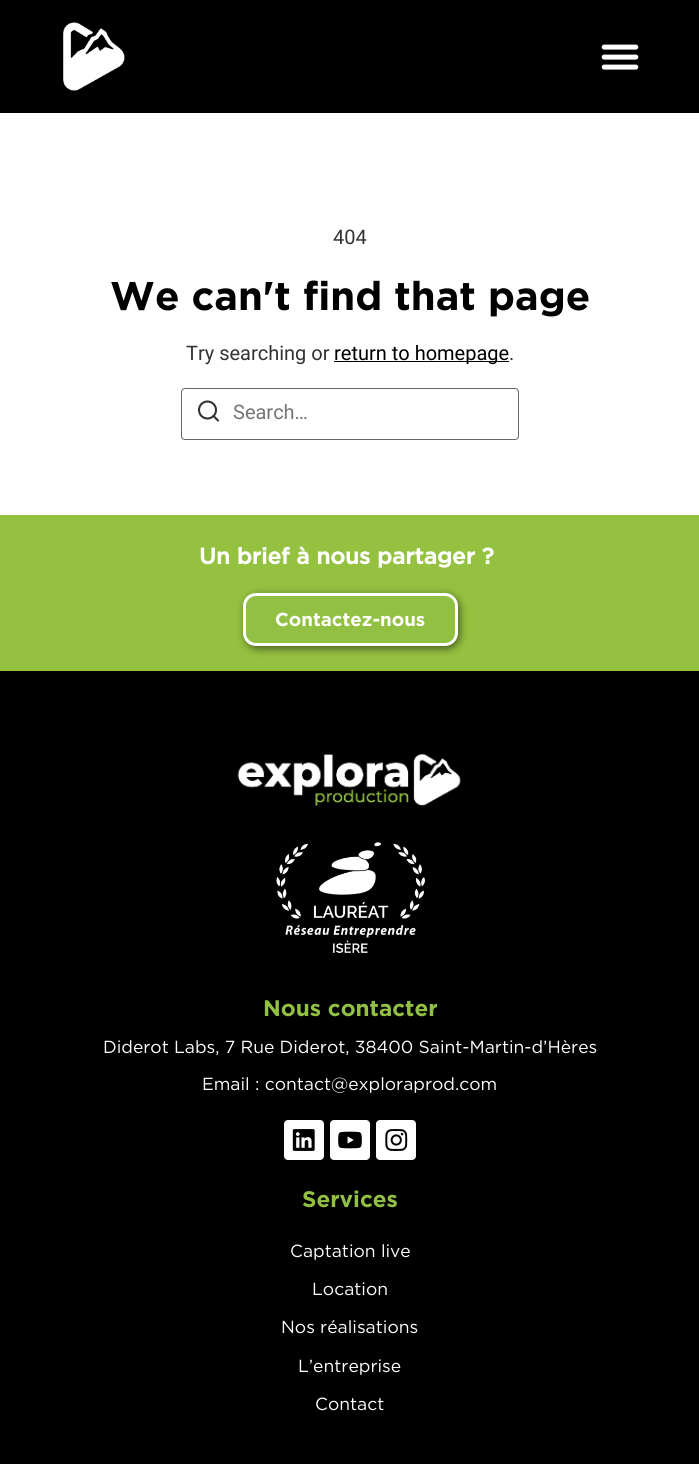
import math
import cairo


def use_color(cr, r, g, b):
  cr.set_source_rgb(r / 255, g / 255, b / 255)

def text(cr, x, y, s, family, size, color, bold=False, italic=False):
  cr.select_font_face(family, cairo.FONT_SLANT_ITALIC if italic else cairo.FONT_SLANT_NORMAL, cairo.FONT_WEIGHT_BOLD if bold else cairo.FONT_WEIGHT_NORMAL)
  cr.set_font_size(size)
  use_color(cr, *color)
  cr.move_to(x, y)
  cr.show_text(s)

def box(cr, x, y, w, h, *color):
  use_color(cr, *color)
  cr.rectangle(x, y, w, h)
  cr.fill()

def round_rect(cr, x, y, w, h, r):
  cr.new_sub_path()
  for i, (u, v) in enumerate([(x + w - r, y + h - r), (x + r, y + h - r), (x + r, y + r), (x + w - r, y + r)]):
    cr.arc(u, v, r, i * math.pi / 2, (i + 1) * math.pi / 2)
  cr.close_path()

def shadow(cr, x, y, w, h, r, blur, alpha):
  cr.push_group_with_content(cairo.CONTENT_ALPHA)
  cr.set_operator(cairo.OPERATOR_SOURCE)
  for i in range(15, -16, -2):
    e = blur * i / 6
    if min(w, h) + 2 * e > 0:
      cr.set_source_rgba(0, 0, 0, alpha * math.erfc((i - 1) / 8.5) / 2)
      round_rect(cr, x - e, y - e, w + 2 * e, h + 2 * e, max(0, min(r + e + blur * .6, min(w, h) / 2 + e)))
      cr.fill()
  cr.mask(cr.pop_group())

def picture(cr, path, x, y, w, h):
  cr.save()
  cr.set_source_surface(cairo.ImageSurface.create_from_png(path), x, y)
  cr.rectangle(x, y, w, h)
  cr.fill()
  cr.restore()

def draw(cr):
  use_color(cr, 255, 255, 255)
  cr.paint()
  box(cr, 0, 0, 699, 113, 0, 0, 0)
  picture(cr, "img_01.png", 63, 22, 62, 69)
  picture(cr, "img_02.png", 601, 44, 38, 26)
  box(cr, 334, 361, 175, 1, 0, 0, 0)
  round_rect(cr, 181.5, 388.5, 337, 51, 3.5)
  use_color(cr, 102, 102, 102)
  cr.set_line_width(1)
  cr.stroke()
  cr.arc(207.5, 410, 8.5, 0, 2 * math.pi)
  use_color(cr, 51, 51, 51)
  cr.set_line_width(2.1)
  cr.stroke()
  cr.new_path()
  cr.move_to(218, 420.5)
  cr.line_to(213.5, 416)
  cr.set_line_cap(cairo.LINE_CAP_ROUND)
  cr.set_line_join(cairo.LINE_JOIN_ROUND)
  cr.stroke()
  box(cr, 0, 515, 699, 156, 148, 193, 64)
  use_color(cr, 0, 0, 0)
  shadow(cr, 245, 595, 215, 54, 13, 4, 0.5)
  use_color(cr, 146, 192, 67)
  round_rect(cr, 244.5, 594.5, 212, 50, 11.5)
  cr.fill_preserve()
  use_color(cr, 255, 255, 255)
  cr.set_line_width(3)
  cr.set_line_cap(cairo.LINE_CAP_BUTT)
  cr.set_line_join(cairo.LINE_JOIN_MITER)
  cr.stroke()
  box(cr, 0, 671, 699, 793, 0, 0, 0)
  picture(cr, "img_03.png", 237, 754, 224, 52)
  picture(cr, "img_04.png", 276, 842, 149, 111)
  use_color(cr, 255, 255, 255)
  round_rect(cr, 284, 1120, 40, 40, 4)
  cr.fill()
  picture(cr, "img_05.png", 292, 1129, 23, 22)
  round_rect(cr, 330, 1120, 40, 40, 4)
  cr.fill()
  picture(cr, "img_06.png", 338, 1131, 24, 18)
  round_rect(cr, 376, 1120, 40, 40, 4)
  cr.fill()
  picture(cr, "img_07.png", 385, 1129, 23, 22)
  text(cr, 333, 244, "404", "Roboto", 20, (51, 51, 51))
  text(cr, 110, 310, "We can't find that page", "Gotham", 40, (0, 0, 0), bold=True)
  text(cr, 186, 360, "Try searching or", "Roboto", 20, (51, 51, 51))
  text(cr, 334, 360, "return to homepage", "Roboto", 20, (0, 0, 0))
  text(cr, 509, 360, ".", "Roboto", 20, (51, 51, 51))
  text(cr, 233, 419, "Search…", "Roboto", 20, (117, 117, 117))
  text(cr, 199, 564, "Un brief à nous partager ?", "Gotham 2", 22.5, (255, 255, 255), bold=True)
  text(cr, 275, 626, "Contactez-nous", "Gotham", 18.75, (255, 255, 255), bold=True)
  text(cr, 263, 1016, "Nous contacter", "Gotham", 22.5, (146, 192, 67), bold=True)
  text(cr, 103, 1053, "Diderot Labs, 7 Rue Diderot, 38400 Saint-Martin-d’Hères", "Gotham", 17.5, (255, 255, 255))
  text(cr, 202, 1090, "Email : contact@exploraprod.com", "Gotham", 17.5, (255, 255, 255))
  text(cr, 302, 1207, "Services", "Gotham", 22.5, (146, 192, 67), bold=True)
  text(cr, 290, 1257, "Captation live", "Gotham", 17.5, (255, 255, 255))
  text(cr, 312, 1295, "Location", "Gotham", 17.5, (255, 255, 255))
  text(cr, 281, 1333, "Nos réalisations", "Gotham", 17.5, (255, 255, 255))
  text(cr, 298, 1372, "L’entreprise", "Gotham", 17.5, (255, 255, 255))
  text(cr, 315, 1410, "Contact", "Gotham", 17.5, (255, 255, 255))


surface = cairo.ImageSurface(cairo.FORMAT_RGB24, 699, 1464)
cr = cairo.Context(surface)
options = cairo.FontOptions()
options.set_hint_metrics(cairo.HINT_METRICS_OFF)
options.set_hint_style(cairo.HINT_STYLE_NONE)
cr.set_font_options(options)
cr.set_miter_limit(4)
draw(cr)
surface.write_to_png("out.png")
